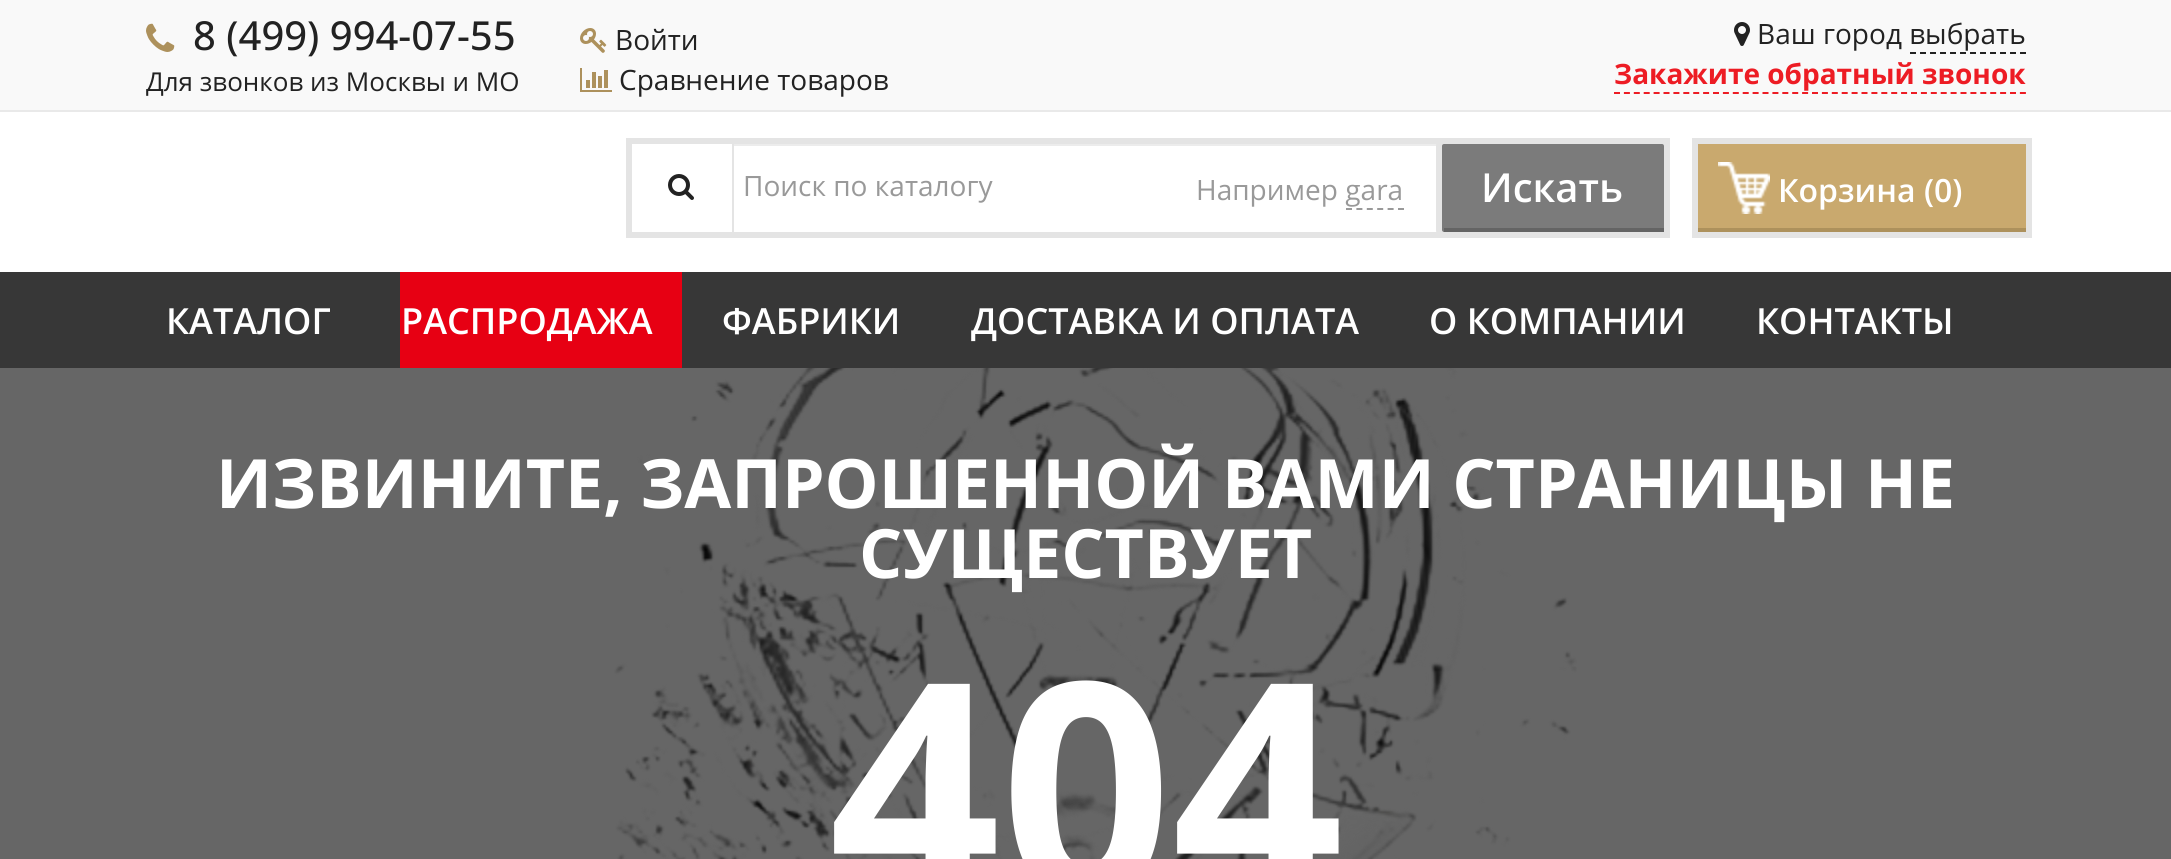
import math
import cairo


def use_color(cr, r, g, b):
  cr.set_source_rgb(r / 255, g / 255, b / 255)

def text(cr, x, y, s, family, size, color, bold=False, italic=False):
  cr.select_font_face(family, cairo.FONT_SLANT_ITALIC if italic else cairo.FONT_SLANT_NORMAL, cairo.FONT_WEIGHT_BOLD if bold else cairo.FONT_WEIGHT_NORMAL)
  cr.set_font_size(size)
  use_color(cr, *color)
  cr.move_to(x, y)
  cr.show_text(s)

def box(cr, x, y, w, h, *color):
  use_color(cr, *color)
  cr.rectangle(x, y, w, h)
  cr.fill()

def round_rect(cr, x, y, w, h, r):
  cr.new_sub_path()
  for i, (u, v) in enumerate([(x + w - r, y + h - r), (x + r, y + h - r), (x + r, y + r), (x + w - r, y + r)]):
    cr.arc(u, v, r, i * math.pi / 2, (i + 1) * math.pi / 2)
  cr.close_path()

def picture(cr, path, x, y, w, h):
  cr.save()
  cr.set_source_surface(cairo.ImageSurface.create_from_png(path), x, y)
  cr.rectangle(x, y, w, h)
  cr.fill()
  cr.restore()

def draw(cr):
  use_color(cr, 255, 255, 255)
  cr.paint()
  box(cr, 0, 368, 2171, 491, 102, 102, 102)
  box(cr, 0, 0, 2171, 110, 249, 249, 249)
  box(cr, 0, 110, 2171, 2, 233, 233, 233)
  picture(cr, "img_01.png", 146, 23, 29, 29)
  picture(cr, "img_02.png", 580, 28, 27, 25)
  picture(cr, "img_03.png", 580, 68, 32, 24)
  picture(cr, "img_04.png", 1734, 22, 16, 24)
  cr.new_path()
  cr.move_to(1910, 53)
  cr.line_to(2026, 53)
  use_color(cr, 34, 34, 34)
  cr.set_dash([6, 4])
  cr.stroke()
  cr.new_path()
  cr.move_to(1614, 93)
  cr.line_to(2026, 93)
  use_color(cr, 237, 28, 36)
  cr.set_dash([6, 3.9])
  cr.stroke()
  cr.rectangle(629, 141, 1038, 94)
  use_color(cr, 228, 228, 228)
  cr.set_line_width(6)
  cr.set_dash([])
  cr.stroke()
  picture(cr, "img_05.png", 668, 174, 26, 26)
  box(cr, 732, 144, 2, 90, 228, 228, 228)
  box(cr, 734, 144, 930, 2, 236, 236, 236)
  cr.new_path()
  cr.move_to(1346, 209)
  cr.line_to(1404, 209)
  use_color(cr, 153, 153, 153)
  cr.set_line_width(2)
  cr.set_dash([6, 4.4])
  cr.stroke()
  cr.save()
  cr.rectangle(734, 144, 930, 90)
  cr.clip()
  round_rect(cr, 1439, 141, 228, 94, 5)
  use_color(cr, 228, 228, 228)
  cr.set_line_width(6)
  cr.set_dash([])
  cr.stroke()
  cr.restore()
  use_color(cr, 123, 123, 123)
  round_rect(cr, 1442, 144, 222, 88, 2)
  cr.fill()
  box(cr, 1444, 228, 220, 4, 100, 100, 100)
  cr.rectangle(1695, 141, 334, 94)
  use_color(cr, 228, 228, 228)
  cr.set_line_width(6)
  cr.set_dash([])
  cr.stroke()
  box(cr, 1698, 144, 328, 84, 201, 169, 110)
  picture(cr, "img_06.png", 1718, 162, 52, 52)
  box(cr, 1698, 228, 328, 4, 173, 145, 92)
  box(cr, 0, 272, 2171, 96, 55, 55, 55)
  box(cr, 400, 272, 282, 96, 231, 0, 19)
  picture(cr, "img_07.png", 614, 368, 963, 491)
  text(cr, 193, 50, "8 (499) 994-07-55", "Open Sans Medium", 40, (34, 34, 34))
  text(cr, 146, 91, "Для звонков из Москвы и МО", "Open Sans", 26, (34, 34, 34))
  text(cr, 615, 50, "Войти", "Open Sans", 28, (34, 34, 34))
  text(cr, 619, 90, "Сравнение товаров", "Open Sans", 28, (34, 34, 34))
  text(cr, 1757, 44, "Ваш город выбрать", "Open Sans", 28, (34, 34, 34))
  text(cr, 1614, 84, "Закажите обратный звонок", "Open Sans", 28, (237, 28, 36), bold=True)
  text(cr, 743, 196, "Поиск по каталогу", "Open Sans", 28, (153, 153, 153))
  text(cr, 1196, 200, "Например gara", "Open Sans", 28, (153, 153, 153))
  text(cr, 1481, 202, "Искать", "Open Sans SemiBold", 40, (255, 255, 255))
  text(cr, 1778, 202, "Корзина (0)", "Open Sans SemiBold", 32, (255, 255, 255))
  text(cr, 166, 334, "КАТАЛОГ", "Open Sans SemiBold", 36, (255, 255, 255))
  text(cr, 401, 334, "РАСПРОДАЖА", "Open Sans SemiBold", 36, (255, 255, 255))
  text(cr, 722, 334, "ФАБРИКИ", "Open Sans SemiBold", 36, (255, 255, 255))
  text(cr, 971, 334, "ДОСТАВКА И ОПЛАТА", "Open Sans SemiBold", 36, (255, 255, 255))
  text(cr, 1429, 334, "О КОМПАНИИ", "Open Sans SemiBold", 36, (255, 255, 255))
  text(cr, 1756, 334, "КОНТАКТЫ", "Open Sans SemiBold", 36, (255, 255, 255))
  text(cr, 216, 508, "ИЗВИНИТЕ, ЗАПРОШЕННОЙ ВАМИ СТРАНИЦЫ НЕ", "Open Sans", 68, (255, 255, 255), bold=True)
  text(cr, 859, 578, "СУЩЕСТВУЕТ", "Open Sans", 68, (255, 255, 255), bold=True)
  text(cr, 829, 898, "404", "Open Sans", 300, (255, 255, 255), bold=True)


surface = cairo.ImageSurface(cairo.FORMAT_RGB24, 2171, 859)
cr = cairo.Context(surface)
options = cairo.FontOptions()
options.set_hint_metrics(cairo.HINT_METRICS_OFF)
options.set_hint_style(cairo.HINT_STYLE_NONE)
cr.set_font_options(options)
cr.set_miter_limit(4)
draw(cr)
surface.write_to_png("out.png")
